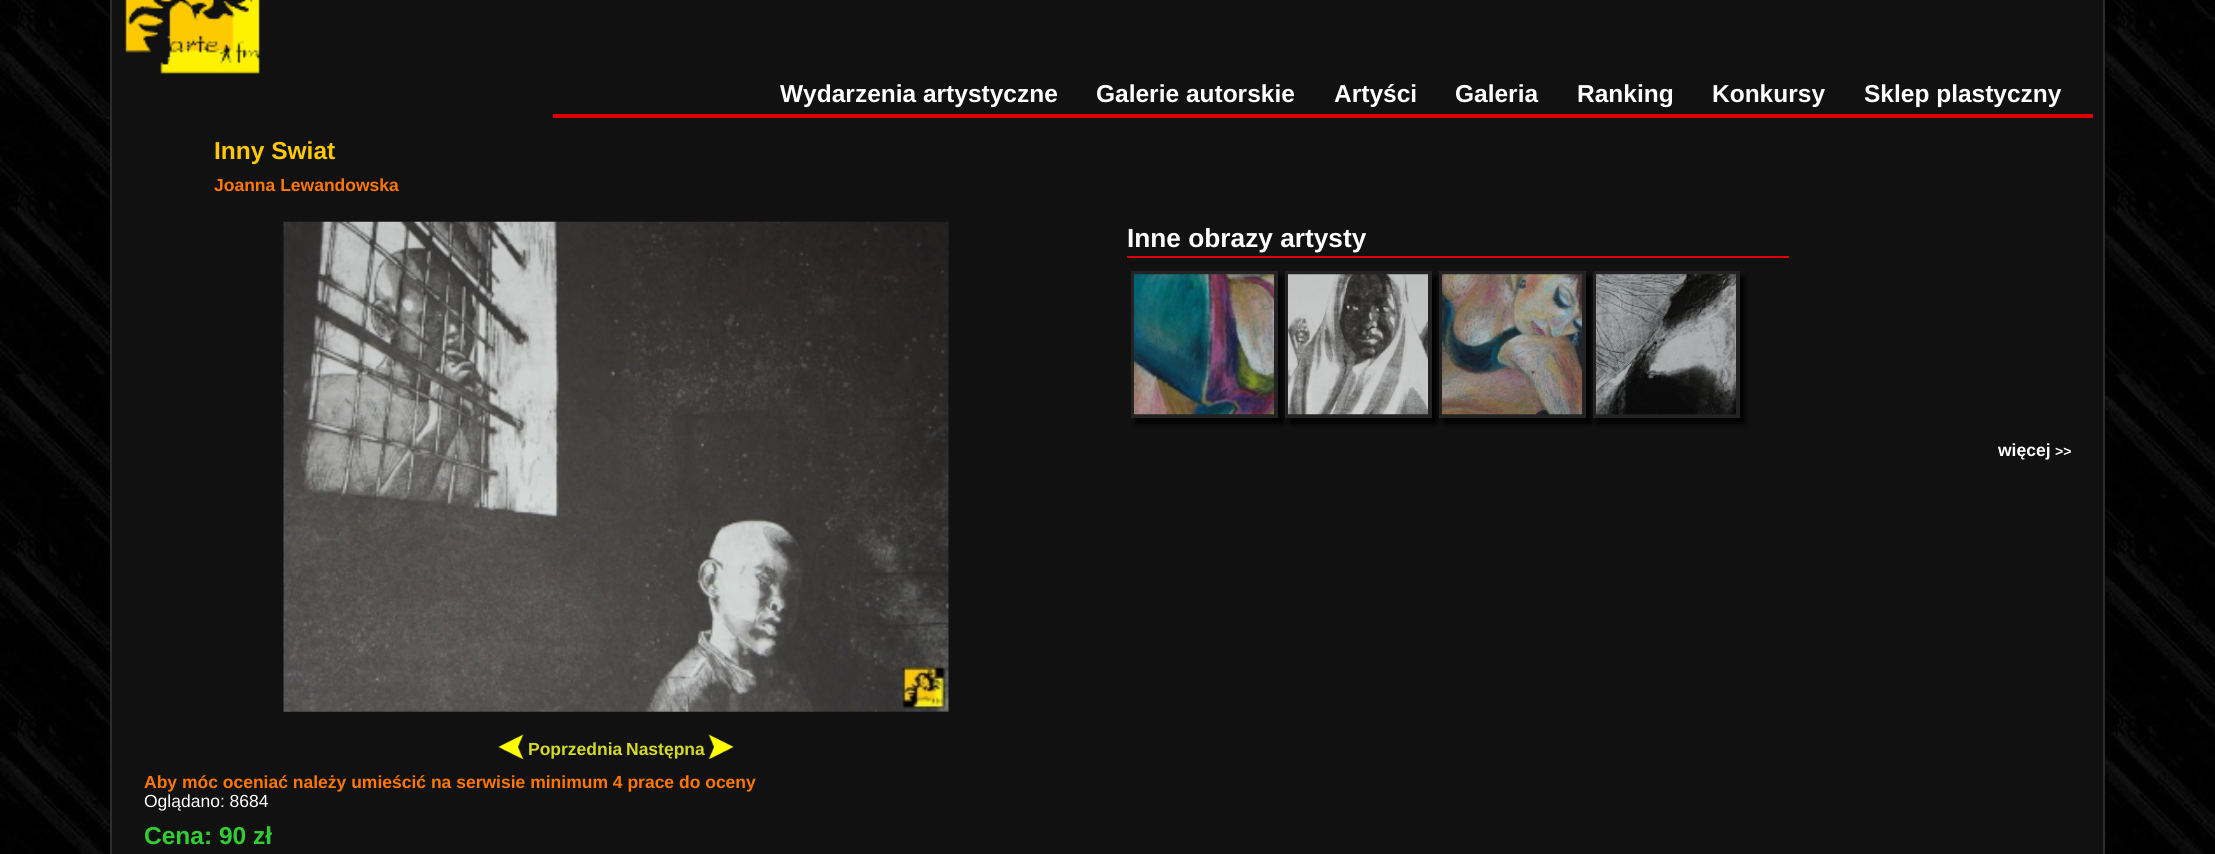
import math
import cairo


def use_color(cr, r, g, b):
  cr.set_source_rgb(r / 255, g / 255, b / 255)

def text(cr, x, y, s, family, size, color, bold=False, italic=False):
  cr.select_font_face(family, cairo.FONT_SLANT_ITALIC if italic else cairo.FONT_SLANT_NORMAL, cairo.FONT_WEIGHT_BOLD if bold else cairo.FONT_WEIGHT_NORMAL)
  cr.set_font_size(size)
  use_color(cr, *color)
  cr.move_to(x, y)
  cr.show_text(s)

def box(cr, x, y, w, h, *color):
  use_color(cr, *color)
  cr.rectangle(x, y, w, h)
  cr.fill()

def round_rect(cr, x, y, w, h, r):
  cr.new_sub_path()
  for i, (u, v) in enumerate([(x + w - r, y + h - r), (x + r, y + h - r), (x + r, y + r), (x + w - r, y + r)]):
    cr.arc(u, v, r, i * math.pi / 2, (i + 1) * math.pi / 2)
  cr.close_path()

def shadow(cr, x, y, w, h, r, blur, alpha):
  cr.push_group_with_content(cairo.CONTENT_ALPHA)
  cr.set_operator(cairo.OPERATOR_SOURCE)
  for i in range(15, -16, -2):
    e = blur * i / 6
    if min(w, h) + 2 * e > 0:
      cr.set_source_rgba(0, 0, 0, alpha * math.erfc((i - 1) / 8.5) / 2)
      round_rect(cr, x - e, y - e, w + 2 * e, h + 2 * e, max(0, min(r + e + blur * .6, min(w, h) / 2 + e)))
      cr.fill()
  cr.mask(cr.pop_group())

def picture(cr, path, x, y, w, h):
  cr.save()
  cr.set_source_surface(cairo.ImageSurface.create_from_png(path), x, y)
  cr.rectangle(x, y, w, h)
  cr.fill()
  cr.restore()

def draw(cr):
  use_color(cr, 255, 255, 255)
  cr.paint()
  picture(cr, "img_01.png", 0, 0, 2215, 854)
  use_color(cr, 17, 17, 17)
  cr.rectangle(111, -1, 1993, 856)
  cr.fill_preserve()
  use_color(cr, 44, 44, 44)
  cr.stroke()
  picture(cr, "img_02.png", 125, 0, 135, 74)
  box(cr, 553, 114, 1540, 4, 223, 0, 0)
  box(cr, 1127, 256, 662, 2, 223, 0, 0)
  use_color(cr, 0, 0, 0)
  shadow(cr, 1136, 277, 147, 147, 0, 2.5, 1)
  cr.rectangle(1133, 273, 143, 143)
  use_color(cr, 35, 35, 35)
  cr.set_line_width(4)
  cr.stroke()
  picture(cr, "img_03.png", 1134, 274, 140, 141)
  use_color(cr, 0, 0, 0)
  shadow(cr, 1290, 277, 147, 147, 0, 2.5, 1)
  cr.rectangle(1287, 273, 143, 143)
  use_color(cr, 35, 35, 35)
  cr.stroke()
  picture(cr, "img_04.png", 1288, 274, 140, 141)
  use_color(cr, 0, 0, 0)
  shadow(cr, 1444, 277, 147, 147, 0, 2.5, 1)
  cr.rectangle(1441, 273, 143, 143)
  use_color(cr, 35, 35, 35)
  cr.stroke()
  picture(cr, "img_05.png", 1442, 274, 140, 141)
  use_color(cr, 0, 0, 0)
  shadow(cr, 1598, 277, 147, 147, 0, 2.5, 1)
  cr.rectangle(1595, 273, 143, 143)
  use_color(cr, 35, 35, 35)
  cr.stroke()
  picture(cr, "img_06.png", 1596, 274, 140, 141)
  picture(cr, "img_07.png", 283, 221, 666, 491)
  picture(cr, "img_08.png", 498, 734, 26, 25)
  picture(cr, "img_09.png", 708, 734, 26, 25)
  text(cr, 780, 102, "Wydarzenia artystyczne", "Liberation Sans", 24.5, (255, 255, 255), bold=True)
  text(cr, 1096, 102, "Galerie autorskie", "Liberation Sans", 24.5, (255, 255, 255), bold=True)
  text(cr, 1334, 102, "Artyści", "Liberation Sans", 24.5, (255, 255, 255), bold=True)
  text(cr, 1455, 102, "Galeria", "Liberation Sans", 24.5, (255, 255, 255), bold=True)
  text(cr, 1577, 102, "Ranking", "Liberation Sans", 24.5, (255, 255, 255), bold=True)
  text(cr, 1712, 102, "Konkursy", "Liberation Sans", 24.5, (255, 255, 255), bold=True)
  text(cr, 1864, 102, "Sklep plastyczny", "Liberation Sans", 24.5, (255, 255, 255), bold=True)
  text(cr, 214, 159, "Inny Swiat", "Liberation Sans", 24.5, (254, 201, 0), bold=True)
  text(cr, 214, 191, "Joanna Lewandowska", "Liberation Sans", 17.5, (255, 119, 0), bold=True)
  text(cr, 1127, 247, "Inne obrazy artysty", "Liberation Sans", 26.25, (255, 255, 255), bold=True)
  text(cr, 1998, 456, "więcej", "Liberation Sans", 17.5, (255, 255, 255), bold=True)
  text(cr, 2055, 456, ">>", "Liberation Sans", 14, (255, 255, 255), bold=True)
  text(cr, 528, 755, "Poprzednia", "Liberation Sans", 17.5, (213, 219, 37), bold=True)
  text(cr, 626, 755, "Następna", "Liberation Sans", 17.5, (213, 219, 37), bold=True)
  text(cr, 144, 788, "Aby móc oceniać należy umieścić na serwisie minimum 4 prace do oceny", "Liberation Sans", 17.5, (255, 119, 0), bold=True)
  text(cr, 144, 807, "Oglądano: 8684", "Liberation Sans", 17.5, (255, 255, 255))
  text(cr, 144, 844, "Cena: 90 zł", "Liberation Sans", 24.5, (50, 205, 50), bold=True)


surface = cairo.ImageSurface(cairo.FORMAT_RGB24, 2215, 854)
cr = cairo.Context(surface)
options = cairo.FontOptions()
options.set_hint_metrics(cairo.HINT_METRICS_OFF)
options.set_hint_style(cairo.HINT_STYLE_NONE)
cr.set_font_options(options)
cr.set_miter_limit(4)
draw(cr)
surface.write_to_png("out.png")
